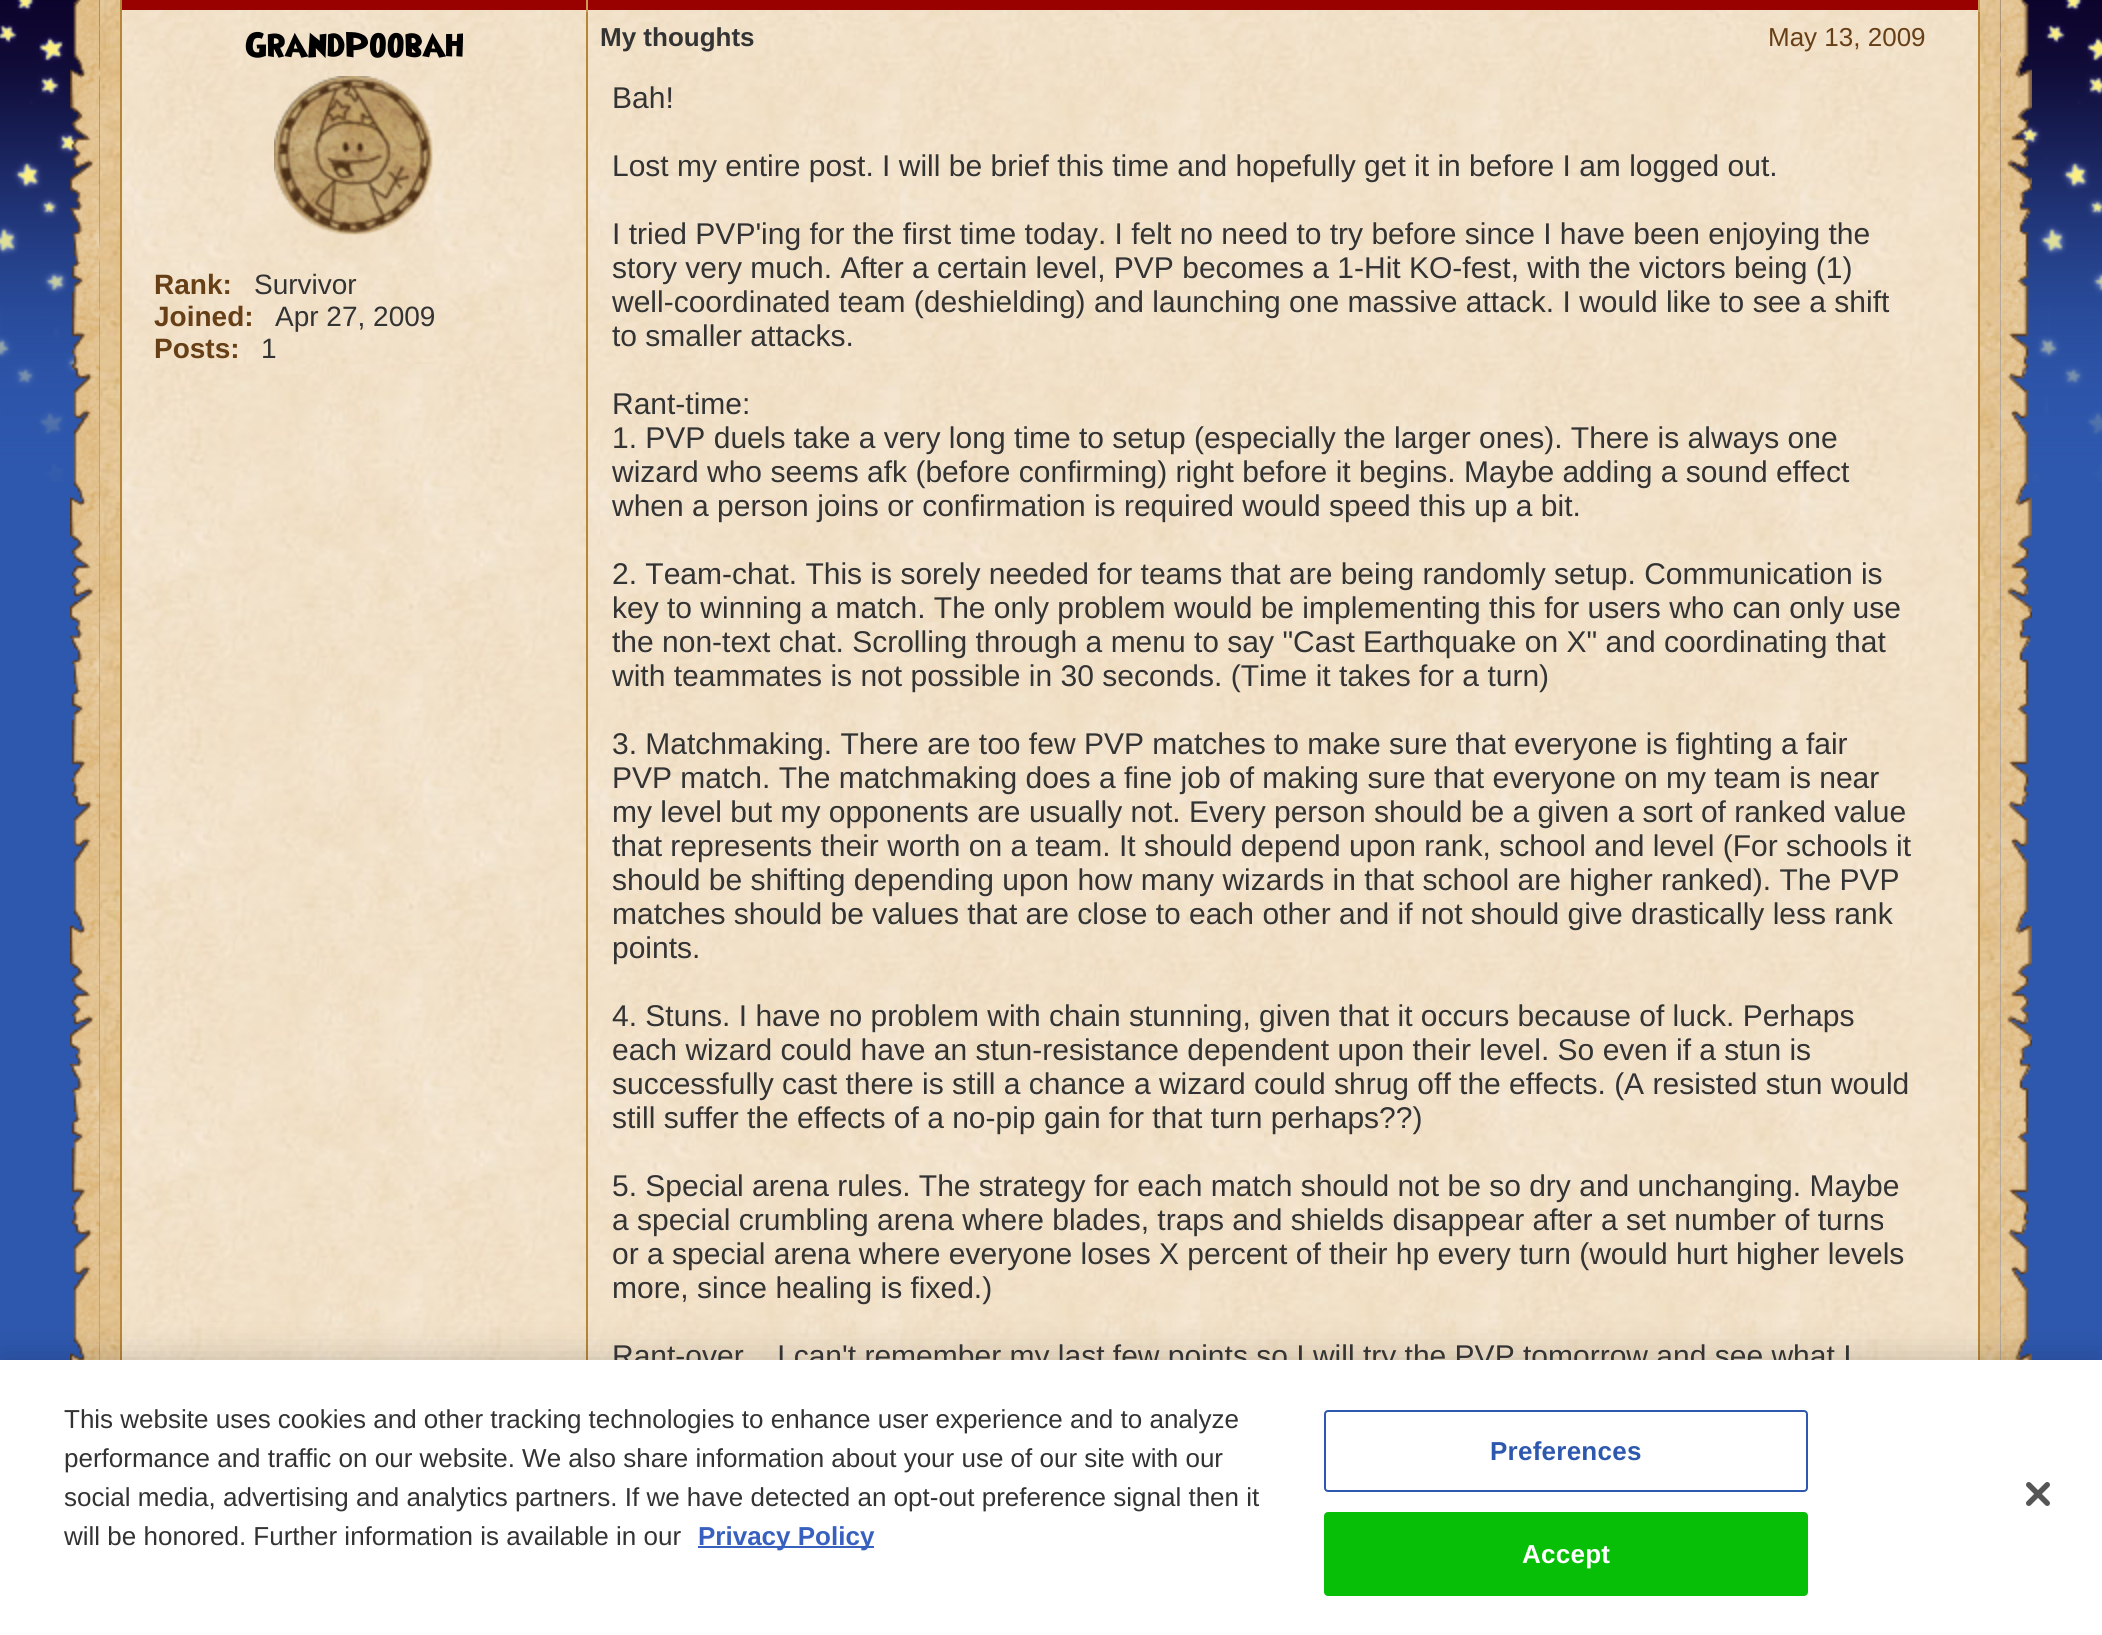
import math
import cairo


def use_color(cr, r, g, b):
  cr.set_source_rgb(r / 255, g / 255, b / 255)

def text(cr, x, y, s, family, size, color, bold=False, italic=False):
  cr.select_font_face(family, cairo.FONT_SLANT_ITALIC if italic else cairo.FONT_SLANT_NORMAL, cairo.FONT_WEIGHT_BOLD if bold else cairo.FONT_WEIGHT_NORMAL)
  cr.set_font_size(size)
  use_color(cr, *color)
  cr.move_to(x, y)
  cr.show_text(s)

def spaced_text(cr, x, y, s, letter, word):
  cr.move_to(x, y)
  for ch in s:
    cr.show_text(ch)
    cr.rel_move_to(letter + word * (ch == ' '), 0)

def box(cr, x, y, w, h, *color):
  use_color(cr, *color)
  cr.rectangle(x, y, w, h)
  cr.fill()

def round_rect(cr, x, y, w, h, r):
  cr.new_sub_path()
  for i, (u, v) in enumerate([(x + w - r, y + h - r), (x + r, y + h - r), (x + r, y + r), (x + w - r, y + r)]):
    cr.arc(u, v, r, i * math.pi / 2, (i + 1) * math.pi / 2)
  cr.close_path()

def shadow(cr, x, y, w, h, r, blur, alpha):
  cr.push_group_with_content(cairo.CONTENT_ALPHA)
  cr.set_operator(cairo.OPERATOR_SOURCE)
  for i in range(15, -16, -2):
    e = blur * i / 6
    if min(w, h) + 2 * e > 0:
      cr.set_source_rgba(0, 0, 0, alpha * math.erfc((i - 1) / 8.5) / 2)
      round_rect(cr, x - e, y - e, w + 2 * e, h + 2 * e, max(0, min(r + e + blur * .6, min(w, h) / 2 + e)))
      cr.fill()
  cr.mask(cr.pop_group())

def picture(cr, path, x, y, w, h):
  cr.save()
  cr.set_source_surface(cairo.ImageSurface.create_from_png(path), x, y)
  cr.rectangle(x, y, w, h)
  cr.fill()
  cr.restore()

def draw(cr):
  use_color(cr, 46, 88, 174)
  cr.paint()
  picture(cr, "img_01.png", 0, 0, 2102, 482)
  picture(cr, "img_02.png", 70, 0, 30, 1360)
  picture(cr, "img_03.png", 2000, 0, 32, 1360)
  picture(cr, "img_04.png", 100, 0, 1900, 1360)
  box(cr, 122, 0, 464, 10, 153, 0, 0)
  box(cr, 586, 10, 2, 1350, 181, 134, 55)
  box(cr, 586, 0, 2, 12, 205, 154, 86)
  box(cr, 588, 0, 1390, 10, 153, 0, 0)
  box(cr, 1978, 10, 2, 1350, 181, 134, 55)
  box(cr, 1978, 0, 2, 12, 205, 154, 86)
  picture(cr, "img_05.png", 122, 10, 464, 1350)
  box(cr, 120, 0, 2, 1360, 181, 134, 55)
  picture(cr, "img_06.png", 134, 22, 440, 342)
  picture(cr, "img_07.png", 274, 76, 159, 159)
  picture(cr, "img_08.png", 588, 10, 1390, 1350)
  picture(cr, "img_09.png", 600, 22, 1366, 1338)
  picture(cr, "img_10.png", 1768, 22, 158, 30)
  picture(cr, "img_11.png", 1768, 52, 155, 16)
  use_color(cr, 0, 0, 0)
  shadow(cr, 0, 1360, 2102, 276, 0, 18, 0.2)
  text(cr, 245, 56, "GrandPoobah", "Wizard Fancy", 32, (0, 0, 0))
  text(cr, 154, 294, "Rank:", "Liberation Sans", 28, (103, 63, 22), bold=True)
  text(cr, 254, 294, "Survivor", "Liberation Sans", 28, (51, 51, 51))
  text(cr, 154, 326, "Joined:", "Liberation Sans", 28, (103, 63, 22), bold=True)
  text(cr, 275, 326, "Apr 27, 2009", "Liberation Sans", 28, (51, 51, 51))
  text(cr, 154, 358, "Posts:", "Liberation Sans", 28, (103, 63, 22), bold=True)
  text(cr, 261, 358, "1", "Liberation Sans", 28, (51, 51, 51))
  text(cr, 600, 46, "My thoughts", "Liberation Sans", 26, (51, 51, 51), bold=True)
  text(cr, 1768, 46, "May 13, 2009", "Liberation Sans", 26, (103, 63, 22))
  text(cr, 612, 108, "Bah!", "Liberation Sans", 30, (51, 51, 51))
  text(cr, 612, 176, "Lost my entire post. I will be brief this time and hopefully get it in before I am logged out.", "Liberation Sans", 30, (51, 51, 51))
  text(cr, 612, 244, "I tried PVP'ing for the first time today. I felt no need to try before since I have been enjoying the", "Liberation Sans", 30, (51, 51, 51))
  text(cr, 612, 278, "story very much. After a certain level, PVP becomes a 1-Hit KO-fest, with the victors being (1)", "Liberation Sans", 30, (51, 51, 51))
  text(cr, 612, 312, "well-coordinated team (deshielding) and launching one massive attack. I would like to see a shift", "Liberation Sans", 30, (51, 51, 51))
  text(cr, 612, 346, "to smaller attacks.", "Liberation Sans", 30, (51, 51, 51))
  text(cr, 612, 414, "Rant-time:", "Liberation Sans", 30, (51, 51, 51))
  text(cr, 612, 448, "1. PVP duels take a very long time to setup (especially the larger ones). There is always one", "Liberation Sans", 30, (51, 51, 51))
  text(cr, 612, 482, "wizard who seems afk (before confirming) right before it begins. Maybe adding a sound effect", "Liberation Sans", 30, (51, 51, 51))
  text(cr, 612, 516, "when a person joins or confirmation is required would speed this up a bit.", "Liberation Sans", 30, (51, 51, 51))
  text(cr, 612, 584, "2. Team-chat. This is sorely needed for teams that are being randomly setup. Communication is", "Liberation Sans", 30, (51, 51, 51))
  text(cr, 612, 618, "key to winning a match. The only problem would be implementing this for users who can only use", "Liberation Sans", 30, (51, 51, 51))
  text(cr, 612, 652, "the non-text chat. Scrolling through a menu to say \"Cast Earthquake on X\" and coordinating that", "Liberation Sans", 30, (51, 51, 51))
  text(cr, 612, 686, "with teammates is not possible in 30 seconds. (Time it takes for a turn)", "Liberation Sans", 30, (51, 51, 51))
  text(cr, 612, 754, "3. Matchmaking. There are too few PVP matches to make sure that everyone is fighting a fair", "Liberation Sans", 30, (51, 51, 51))
  text(cr, 612, 788, "PVP match. The matchmaking does a fine job of making sure that everyone on my team is near", "Liberation Sans", 30, (51, 51, 51))
  text(cr, 612, 822, "my level but my opponents are usually not. Every person should be a given a sort of ranked value", "Liberation Sans", 30, (51, 51, 51))
  text(cr, 612, 856, "that represents their worth on a team. It should depend upon rank, school and level (For schools it", "Liberation Sans", 30, (51, 51, 51))
  text(cr, 612, 890, "should be shifting depending upon how many wizards in that school are higher ranked). The PVP", "Liberation Sans", 30, (51, 51, 51))
  text(cr, 612, 924, "matches should be values that are close to each other and if not should give drastically less rank", "Liberation Sans", 30, (51, 51, 51))
  text(cr, 612, 958, "points.", "Liberation Sans", 30, (51, 51, 51))
  text(cr, 612, 1026, "4. Stuns. I have no problem with chain stunning, given that it occurs because of luck. Perhaps", "Liberation Sans", 30, (51, 51, 51))
  text(cr, 612, 1060, "each wizard could have an stun-resistance dependent upon their level. So even if a stun is", "Liberation Sans", 30, (51, 51, 51))
  text(cr, 612, 1094, "successfully cast there is still a chance a wizard could shrug off the effects. (A resisted stun would", "Liberation Sans", 30, (51, 51, 51))
  text(cr, 612, 1128, "still suffer the effects of a no-pip gain for that turn perhaps??)", "Liberation Sans", 30, (51, 51, 51))
  text(cr, 612, 1196, "5. Special arena rules. The strategy for each match should not be so dry and unchanging. Maybe", "Liberation Sans", 30, (51, 51, 51))
  text(cr, 612, 1230, "a special crumbling arena where blades, traps and shields disappear after a set number of turns", "Liberation Sans", 30, (51, 51, 51))
  text(cr, 612, 1264, "or a special arena where everyone loses X percent of their hp every turn (would hurt higher levels", "Liberation Sans", 30, (51, 51, 51))
  text(cr, 612, 1298, "more, since healing is fixed.)", "Liberation Sans", 30, (51, 51, 51))
  text(cr, 612, 1366, "Rant-over", "Liberation Sans", 30, (51, 51, 51))
  text(cr, 777, 1366, "I can't remember my last few points so I will try the PVP tomorrow and see what I", "Liberation Sans", 30, (51, 51, 51))
  box(cr, 0, 1360, 2102, 275, 255, 255, 255)
  text(cr, 64, 1428, "This website uses cookies and other tracking technologies to enhance user experience and to analyze", "Liberation Sans", 26, (51, 51, 51))
  text(cr, 64, 1467, "performance and traffic on our website. We also share information about your use of our site with our", "Liberation Sans", 26, (51, 51, 51))
  text(cr, 64, 1506, "social media, advertising and analytics partners. If we have detected an opt-out preference signal then it", "Liberation Sans", 26, (51, 51, 51))
  text(cr, 64, 1545, "will be honored. Further information is available in our", "Liberation Sans", 26, (51, 51, 51))
  box(cr, 698, 1546, 176, 2, 56, 96, 190)
  text(cr, 698, 1545, "Privacy Policy", "Liberation Sans", 26, (56, 96, 190), bold=True)
  round_rect(cr, 1325, 1411, 482, 80, 3)
  use_color(cr, 46, 88, 174)
  cr.stroke()
  spaced_text(cr, 1490, 1460, "Preferences", 0.25, 0)
  use_color(cr, 6, 191, 6)
  round_rect(cr, 1325, 1513, 482, 82, 3)
  cr.fill_preserve()
  cr.stroke()
  use_color(cr, 255, 255, 255)
  spaced_text(cr, 1522, 1563, "Accept", 0.25, 0)
  picture(cr, "img_12.png", 2026, 1482, 24, 24)


surface = cairo.ImageSurface(cairo.FORMAT_RGB24, 2102, 1635)
cr = cairo.Context(surface)
options = cairo.FontOptions()
options.set_hint_metrics(cairo.HINT_METRICS_OFF)
options.set_hint_style(cairo.HINT_STYLE_NONE)
cr.set_font_options(options)
cr.set_miter_limit(4)
draw(cr)
surface.write_to_png("out.png")
